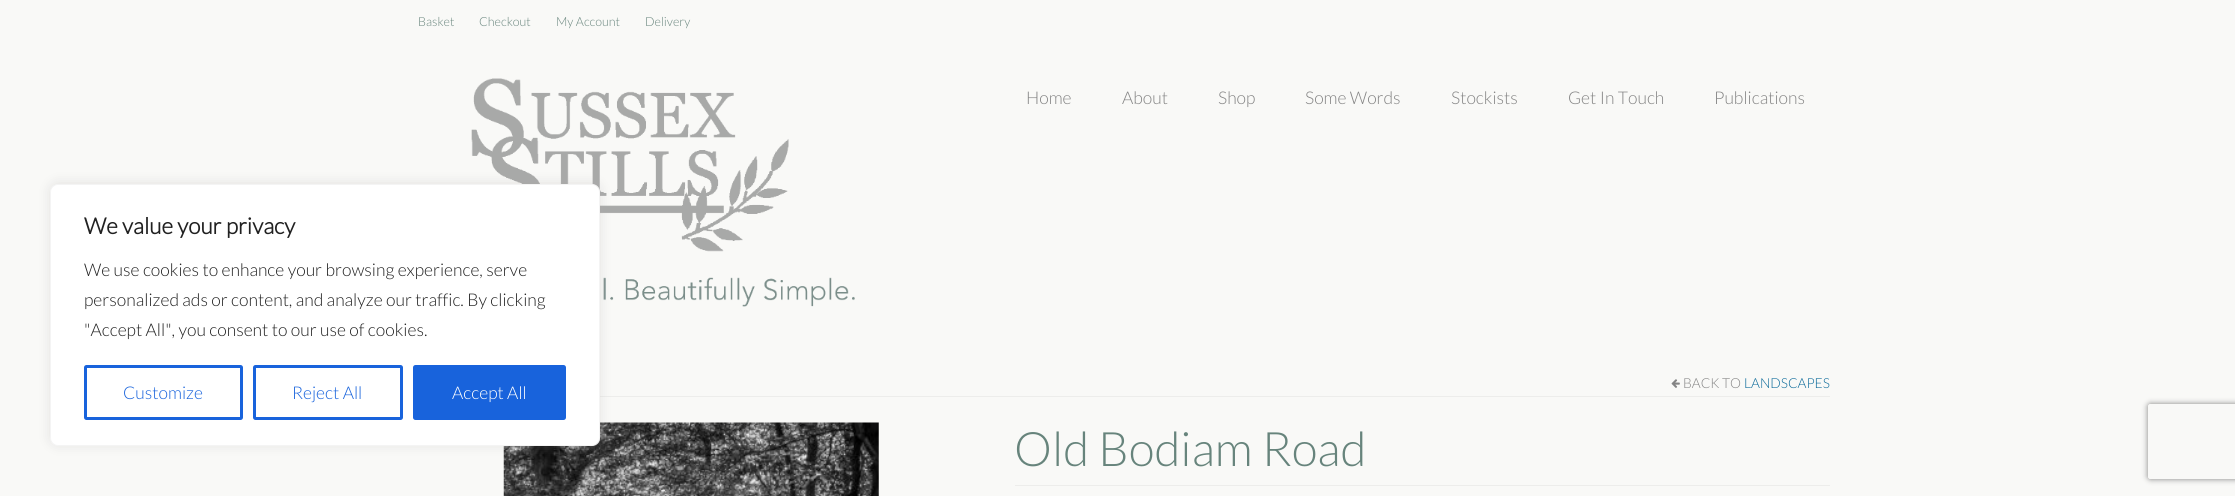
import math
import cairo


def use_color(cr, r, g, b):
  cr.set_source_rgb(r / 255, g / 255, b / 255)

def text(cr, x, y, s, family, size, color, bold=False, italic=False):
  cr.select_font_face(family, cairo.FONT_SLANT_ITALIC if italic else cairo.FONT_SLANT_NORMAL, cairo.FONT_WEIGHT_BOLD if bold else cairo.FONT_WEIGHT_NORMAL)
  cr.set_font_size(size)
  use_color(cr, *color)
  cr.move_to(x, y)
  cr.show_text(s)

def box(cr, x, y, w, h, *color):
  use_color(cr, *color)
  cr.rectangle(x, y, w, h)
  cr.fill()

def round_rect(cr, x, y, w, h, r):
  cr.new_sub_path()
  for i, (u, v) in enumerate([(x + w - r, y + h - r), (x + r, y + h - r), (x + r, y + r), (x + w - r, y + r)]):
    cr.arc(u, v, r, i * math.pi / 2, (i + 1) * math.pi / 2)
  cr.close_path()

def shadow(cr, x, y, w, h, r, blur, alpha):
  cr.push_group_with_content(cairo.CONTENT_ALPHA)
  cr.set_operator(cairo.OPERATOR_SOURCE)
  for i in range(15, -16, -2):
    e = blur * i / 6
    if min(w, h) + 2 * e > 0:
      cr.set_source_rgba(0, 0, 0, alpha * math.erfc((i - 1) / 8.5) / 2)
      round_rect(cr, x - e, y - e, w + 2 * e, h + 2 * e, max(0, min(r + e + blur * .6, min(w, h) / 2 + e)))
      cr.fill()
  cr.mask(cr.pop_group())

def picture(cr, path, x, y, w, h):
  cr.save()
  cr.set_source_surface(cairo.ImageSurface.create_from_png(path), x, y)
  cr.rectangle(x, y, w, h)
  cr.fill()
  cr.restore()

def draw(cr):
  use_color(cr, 249, 249, 247)
  cr.paint()
  picture(cr, "img_01.png", 471, 78, 384, 229)
  box(cr, 600, 396, 1230, 1, 237, 237, 235)
  picture(cr, "img_03.png", 503, 422, 376, 74)
  use_color(cr, 172, 171, 171)
  shadow(cr, 50, 183, 550, 262, 8, 6, 0.3)
  use_color(cr, 255, 255, 255)
  round_rect(cr, 50.5, 184.5, 549, 261, 7.5)
  cr.fill_preserve()
  use_color(cr, 244, 244, 244)
  cr.set_line_width(1)
  cr.stroke()
  round_rect(cr, 85.5, 366.5, 156, 52, 1)
  use_color(cr, 24, 99, 220)
  cr.set_line_width(3)
  cr.stroke()
  round_rect(cr, 254.5, 366.5, 147, 52, 1)
  cr.stroke()
  round_rect(cr, 414.5, 366.5, 150, 52, 1)
  cr.fill_preserve()
  cr.stroke()
  picture(cr, "img_02.png", 1671, 379, 9, 9)
  box(cr, 1015, 485, 815, 1, 237, 237, 235)
  cr.save()
  cr.set_fill_rule(cairo.FILL_RULE_EVEN_ODD)
  cr.new_path()
  cr.move_to(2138, 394)
  cr.line_to(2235, 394)
  cr.line_to(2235, 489)
  cr.line_to(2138, 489)
  cr.close_path()
  cr.move_to(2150.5, 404)
  cr.line_to(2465.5, 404)
  cr.curve_to(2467, 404, 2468, 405, 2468, 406.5)
  cr.line_to(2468, 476.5)
  cr.curve_to(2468, 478, 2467, 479, 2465.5, 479)
  cr.line_to(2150.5, 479)
  cr.curve_to(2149, 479, 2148, 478, 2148, 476.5)
  cr.line_to(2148, 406.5)
  cr.curve_to(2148, 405, 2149, 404, 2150.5, 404)
  cr.close_path()
  cr.clip()
  use_color(cr, 128, 128, 128)
  shadow(cr, 2148, 404, 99, 75, 2.5, 3, 1)
  cr.restore()
  text(cr, 84, 234, "We value your privacy", "Lato", 22.5, (33, 33, 33), bold=True)
  text(cr, 84, 276, "We use cookies to enhance your browsing experience, serve", "Lato Light", 17.5, (33, 33, 33))
  text(cr, 84, 306, "personalized ads or content, and analyze our traffic. By clicking", "Lato Light", 17.5, (33, 33, 33))
  text(cr, 84, 336, "\"Accept All\", you consent to our use of cookies.", "Lato Light", 17.5, (33, 33, 33))
  text(cr, 123, 399, "Customize", "Lato Light", 17.5, (24, 99, 220))
  text(cr, 292, 399, "Reject All", "Lato Light", 17.5, (24, 99, 220))
  text(cr, 452, 399, "Accept All", "Lato Light", 17.5, (255, 255, 255))
  text(cr, 418, 26, "Basket", "Lato Light", 12.5, (103, 132, 124))
  text(cr, 479, 26, "Checkout", "Lato Light", 12.5, (103, 132, 124))
  text(cr, 556, 26, "My Account", "Lato Light", 12.5, (103, 132, 124))
  text(cr, 645, 26, "Delivery", "Lato Light", 12.5, (103, 132, 124))
  text(cr, 1026, 104, "Home", "Lato Light", 17.5, (132, 132, 132))
  text(cr, 1122, 104, "About", "Lato Light", 17.5, (132, 132, 132))
  text(cr, 1218, 104, "Shop", "Lato Light", 17.5, (132, 132, 132))
  text(cr, 1305, 104, "Some Words", "Lato Light", 17.5, (132, 132, 132))
  text(cr, 1451, 104, "Stockists", "Lato Light", 17.5, (132, 132, 132))
  text(cr, 1568, 104, "Get In Touch", "Lato Light", 17.5, (132, 132, 132))
  text(cr, 1714, 104, "Publications", "Lato Light", 17.5, (132, 132, 132))
  text(cr, 1683, 388, "BACK TO", "Lato Light", 13.75, (132, 132, 132))
  text(cr, 1744, 388, "LANDSCAPES", "Lato Light", 13.75, (9, 105, 153))
  text(cr, 1014, 466, "Old Bodiam Road", "Lato Light", 47.5, (103, 132, 124))


surface = cairo.ImageSurface(cairo.FORMAT_RGB24, 2235, 496)
cr = cairo.Context(surface)
options = cairo.FontOptions()
options.set_hint_metrics(cairo.HINT_METRICS_OFF)
options.set_hint_style(cairo.HINT_STYLE_NONE)
cr.set_font_options(options)
cr.set_miter_limit(4)
draw(cr)
surface.write_to_png("out.png")
